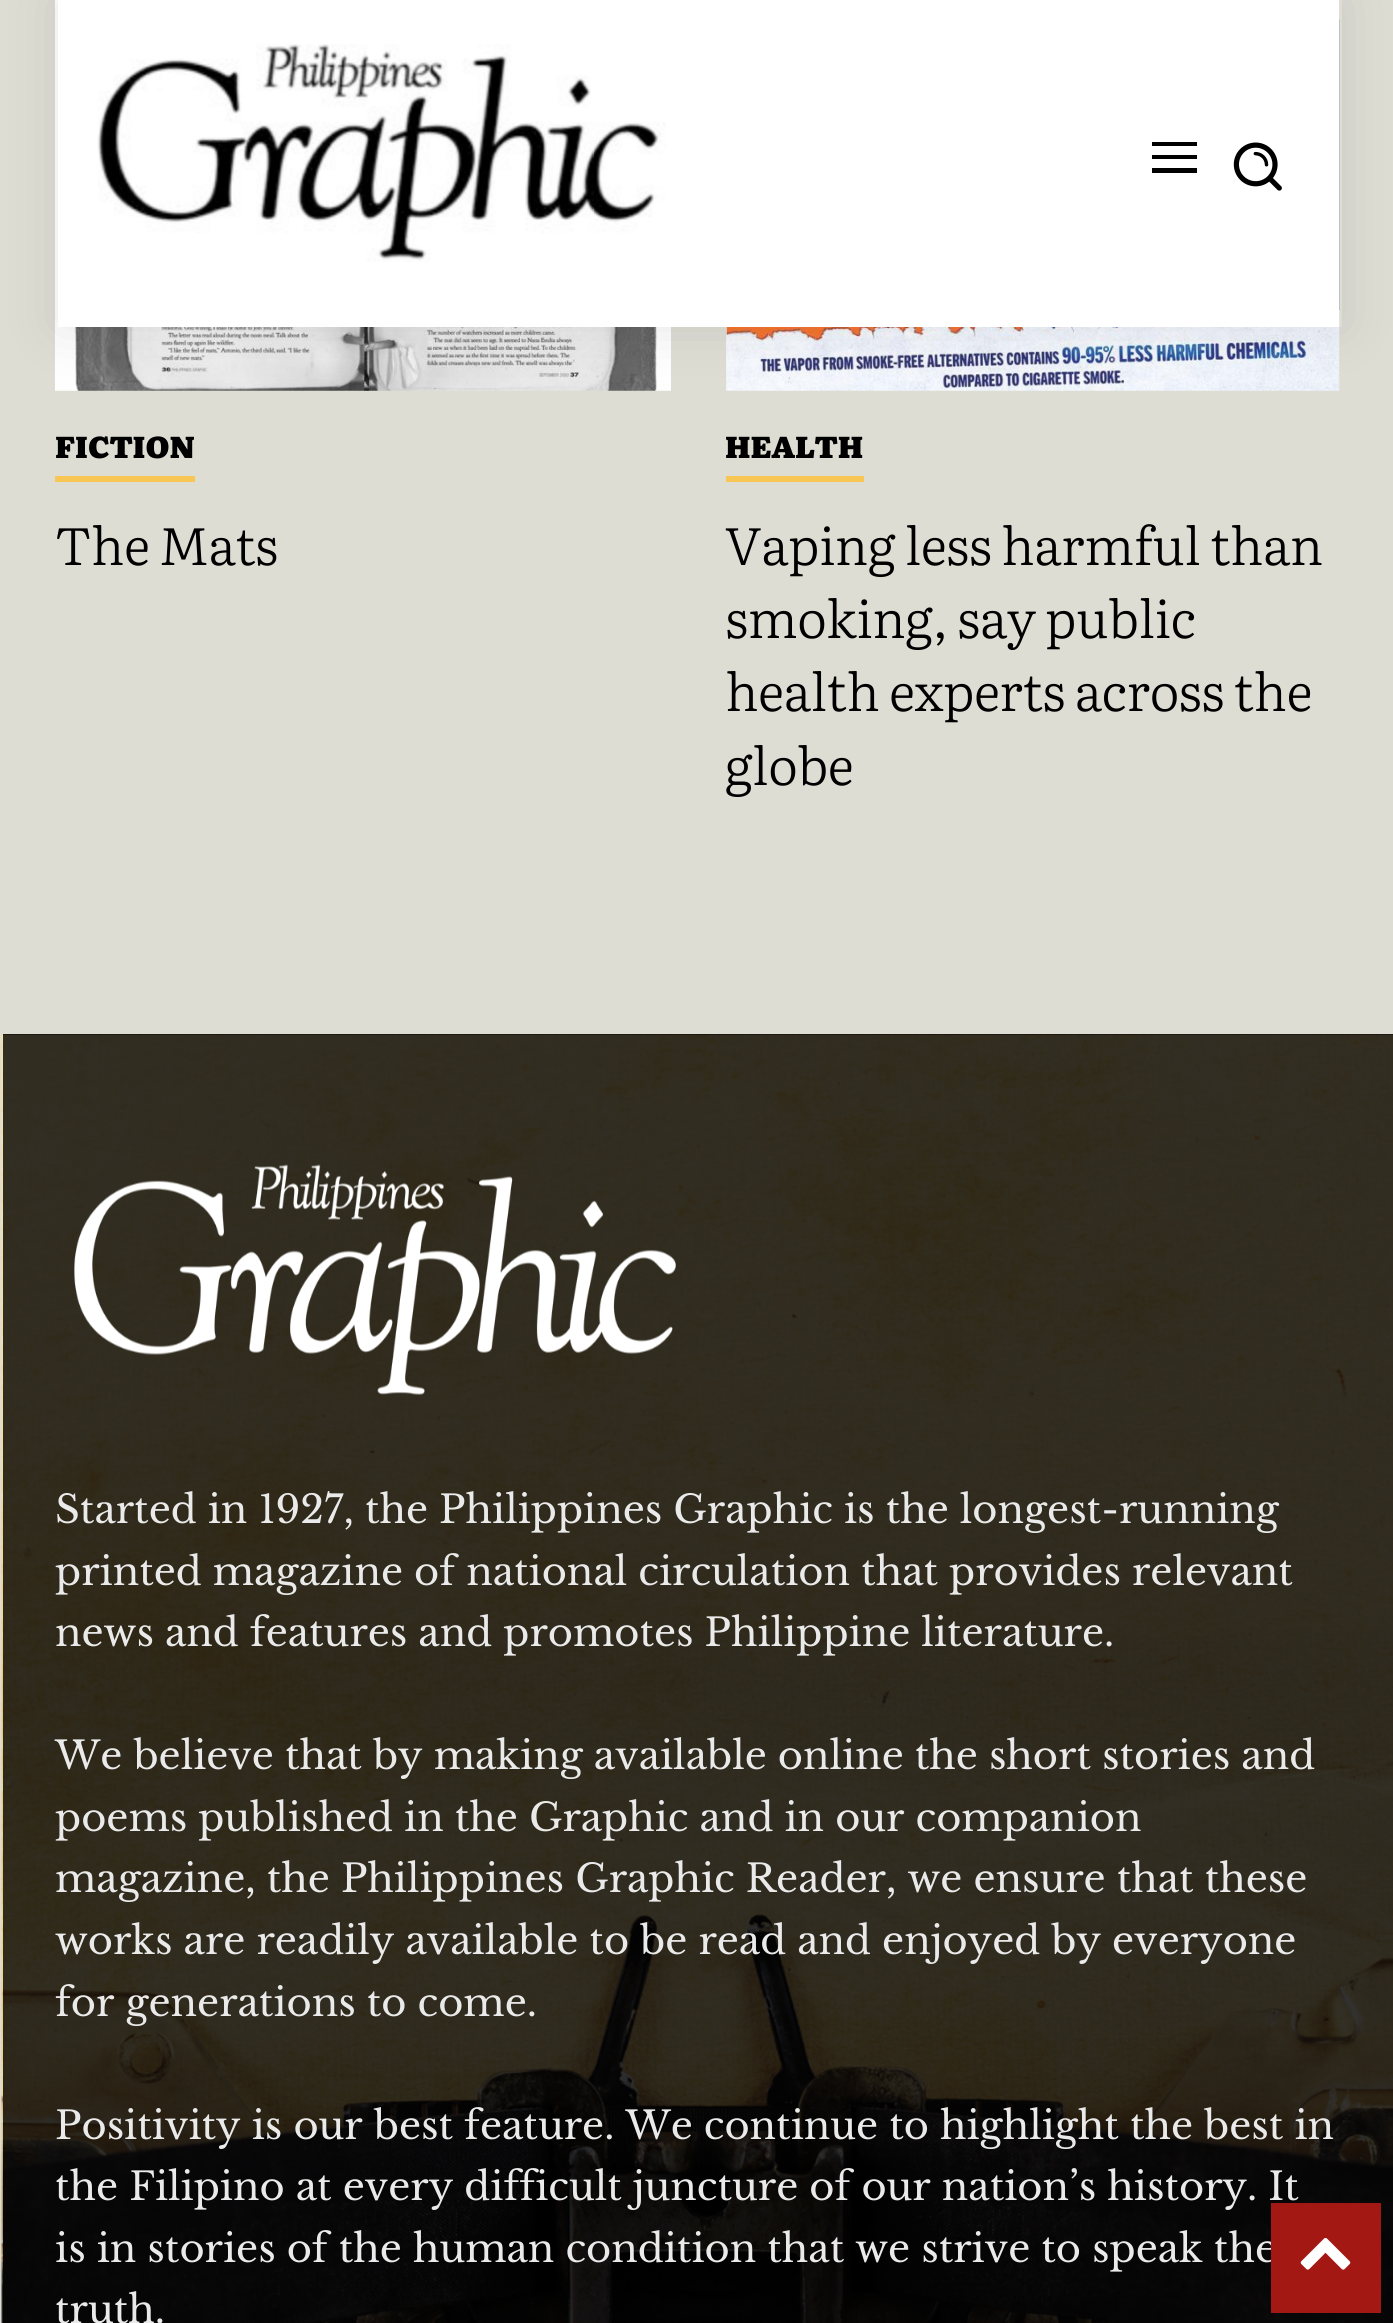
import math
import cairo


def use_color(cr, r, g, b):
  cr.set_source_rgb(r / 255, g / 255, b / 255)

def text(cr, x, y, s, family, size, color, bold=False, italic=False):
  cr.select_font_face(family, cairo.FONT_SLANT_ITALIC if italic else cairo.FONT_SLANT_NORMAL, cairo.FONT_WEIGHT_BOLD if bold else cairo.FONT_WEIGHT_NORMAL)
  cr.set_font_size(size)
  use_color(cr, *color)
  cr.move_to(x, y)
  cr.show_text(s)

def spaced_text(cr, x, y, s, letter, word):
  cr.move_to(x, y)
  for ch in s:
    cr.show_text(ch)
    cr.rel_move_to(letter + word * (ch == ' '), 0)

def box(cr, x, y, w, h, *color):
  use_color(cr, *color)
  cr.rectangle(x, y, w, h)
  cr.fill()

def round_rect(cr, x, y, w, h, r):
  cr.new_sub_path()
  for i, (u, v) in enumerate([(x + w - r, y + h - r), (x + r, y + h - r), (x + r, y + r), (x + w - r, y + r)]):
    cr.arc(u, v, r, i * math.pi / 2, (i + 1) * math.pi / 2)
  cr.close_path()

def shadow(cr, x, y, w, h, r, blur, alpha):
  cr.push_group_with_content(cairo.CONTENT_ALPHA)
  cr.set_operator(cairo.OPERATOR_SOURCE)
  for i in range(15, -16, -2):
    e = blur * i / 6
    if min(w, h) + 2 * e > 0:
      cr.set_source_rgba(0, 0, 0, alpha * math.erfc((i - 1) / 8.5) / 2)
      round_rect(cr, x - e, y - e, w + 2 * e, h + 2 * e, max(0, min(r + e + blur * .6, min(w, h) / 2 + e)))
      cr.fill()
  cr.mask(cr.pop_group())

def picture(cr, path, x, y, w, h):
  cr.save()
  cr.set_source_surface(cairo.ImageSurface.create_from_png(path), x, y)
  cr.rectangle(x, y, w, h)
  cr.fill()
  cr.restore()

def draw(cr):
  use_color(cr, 221, 221, 212)
  cr.paint()
  picture(cr, "img_04.png", 726, 19, 614, 372)
  box(cr, 55, 0, 1284, 327, 255, 255, 255)
  picture(cr, "img_01.png", 97, 44, 569, 218)
  use_color(cr, 0, 0, 0)
  cr.new_path()
  cr.move_to(1197, 146)
  cr.line_to(1152, 146)
  cr.line_to(1152, 142)
  cr.line_to(1197, 142)
  cr.close_path()
  cr.move_to(1197, 159)
  cr.line_to(1152, 159)
  cr.line_to(1152, 155)
  cr.line_to(1197, 155)
  cr.close_path()
  cr.move_to(1197, 173)
  cr.line_to(1152, 173)
  cr.line_to(1152, 168)
  cr.line_to(1197, 168)
  cr.close_path()
  cr.fill()
  picture(cr, "img_02.png", 1233, 142, 49, 49)
  picture(cr, "img_03.png", 55, 327, 616, 64)
  cr.save()
  cr.set_fill_rule(cairo.FILL_RULE_EVEN_ODD)
  cr.new_path()
  cr.move_to(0, 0)
  cr.line_to(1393, 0)
  cr.line_to(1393, 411)
  cr.line_to(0, 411)
  cr.close_path()
  cr.move_to(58, 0)
  cr.line_to(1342, 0)
  cr.line_to(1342, 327)
  cr.line_to(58, 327)
  cr.close_path()
  cr.clip()
  use_color(cr, 0, 0, 0)
  shadow(cr, 58, 0, 1284, 327, 0, 27.5, 0.1)
  cr.restore()
  box(cr, 55, 476, 140, 6, 247, 198, 84)
  box(cr, 726, 476, 138, 6, 247, 198, 84)
  picture(cr, "img_05.png", 1, 1034, 2, 1289)
  box(cr, 3, 1034, 1390, 1289, 0, 0, 0)
  picture(cr, "img_06.png", 1, 1034, 1392, 1289)
  picture(cr, "img_07.png", 74, 1164, 602, 231)
  text(cr, 55, 458, "FICTION", "Literata Black", 30.25, (0, 0, 0))
  cr.select_font_face("Literata Light")
  cr.set_font_size(52.25)
  spaced_text(cr, 55, 565, "The Mats", -0.55, 0)
  text(cr, 725, 458, "HEALTH", "Literata Black", 30.25, (0, 0, 0))
  cr.select_font_face("Literata Light")
  cr.set_font_size(52.25)
  spaced_text(cr, 725, 565, "Vaping less harmful than", -0.55, 0)
  spaced_text(cr, 725, 638, "smoking, say public", -0.55, 0)
  spaced_text(cr, 725, 711, "health experts across the", -0.55, 0)
  spaced_text(cr, 725, 785, "globe", -0.55, 0)
  text(cr, 55, 1523, "Started in 1927, the Philippines Graphic is the longest-running", "Libre Baskerville", 38.5, (234, 234, 234))
  text(cr, 55, 1585, "printed magazine of national circulation that provides relevant", "Libre Baskerville", 38.5, (234, 234, 234))
  text(cr, 55, 1646, "news and features and promotes Philippine literature.", "Libre Baskerville", 38.5, (234, 234, 234))
  text(cr, 55, 1769, "We believe that by making available online the short stories and", "Libre Baskerville", 38.5, (234, 234, 234))
  text(cr, 55, 1831, "poems published in the Graphic and in our companion", "Libre Baskerville", 38.5, (234, 234, 234))
  text(cr, 55, 1892, "magazine, the Philippines Graphic Reader, we ensure that these", "Libre Baskerville", 38.5, (234, 234, 234))
  text(cr, 55, 1954, "works are readily available to be read and enjoyed by everyone", "Libre Baskerville", 38.5, (234, 234, 234))
  text(cr, 55, 2016, "for generations to come.", "Libre Baskerville", 38.5, (234, 234, 234))
  text(cr, 55, 2139, "Positivity is our best feature. We continue to highlight the best in", "Libre Baskerville", 38.5, (234, 234, 234))
  text(cr, 55, 2200, "the Filipino at every difficult juncture of our nation’s history. It", "Libre Baskerville", 38.5, (234, 234, 234))
  text(cr, 55, 2262, "is in stories of the human condition that we strive to speak the", "Libre Baskerville", 38.5, (234, 234, 234))
  text(cr, 55, 2323, "truth.", "Libre Baskerville", 38.5, (234, 234, 234))
  box(cr, 1271, 2203, 110, 110, 163, 24, 19)
  picture(cr, "img_08.png", 1300, 2238, 51, 32)


surface = cairo.ImageSurface(cairo.FORMAT_RGB24, 1393, 2323)
cr = cairo.Context(surface)
options = cairo.FontOptions()
options.set_hint_metrics(cairo.HINT_METRICS_OFF)
options.set_hint_style(cairo.HINT_STYLE_NONE)
cr.set_font_options(options)
cr.set_miter_limit(4)
draw(cr)
surface.write_to_png("out.png")
